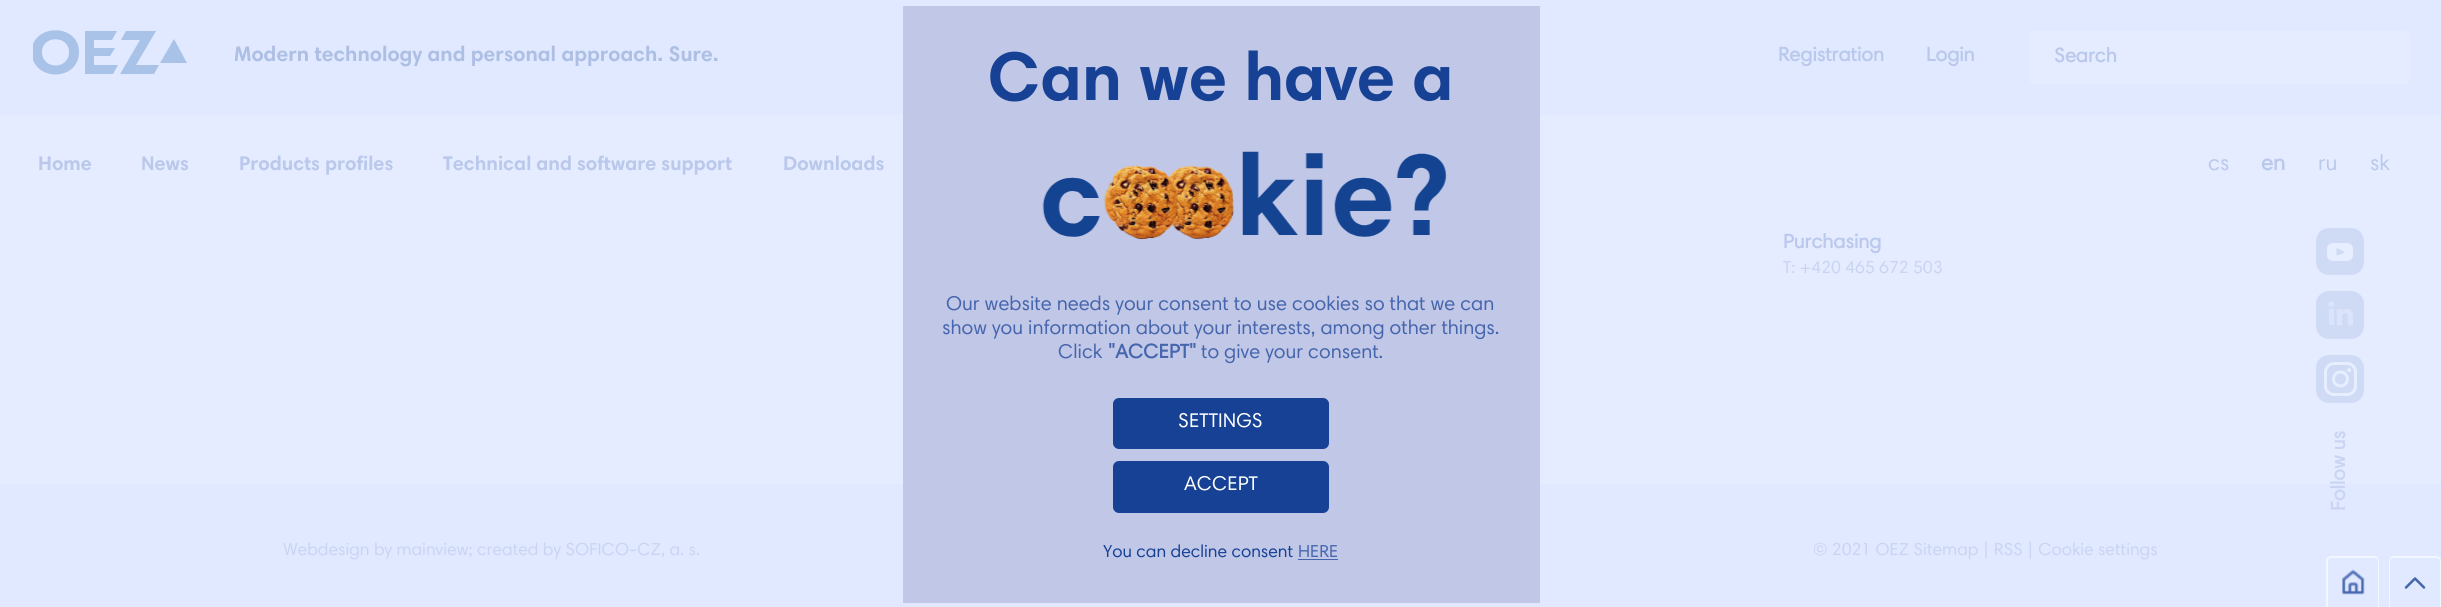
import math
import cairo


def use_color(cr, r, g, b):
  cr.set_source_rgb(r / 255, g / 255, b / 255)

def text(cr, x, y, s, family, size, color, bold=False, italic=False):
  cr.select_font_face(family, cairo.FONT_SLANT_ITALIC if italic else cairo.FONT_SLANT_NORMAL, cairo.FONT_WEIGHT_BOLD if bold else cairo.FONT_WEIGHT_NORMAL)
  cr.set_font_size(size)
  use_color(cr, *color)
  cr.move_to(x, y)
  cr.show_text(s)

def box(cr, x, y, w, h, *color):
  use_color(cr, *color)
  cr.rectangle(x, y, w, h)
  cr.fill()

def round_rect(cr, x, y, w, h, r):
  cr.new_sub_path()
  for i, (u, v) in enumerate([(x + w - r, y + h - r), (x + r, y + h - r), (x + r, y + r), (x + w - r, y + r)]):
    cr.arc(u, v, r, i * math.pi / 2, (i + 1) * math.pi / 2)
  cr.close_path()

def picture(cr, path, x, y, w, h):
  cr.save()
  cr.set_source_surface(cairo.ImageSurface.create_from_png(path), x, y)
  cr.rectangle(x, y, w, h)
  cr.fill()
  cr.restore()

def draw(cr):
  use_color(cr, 229, 236, 255)
  cr.paint()
  box(cr, 0, 0, 2441, 115, 224, 233, 255)
  cr.save()
  cr.rectangle(33, 30, 155, 45)
  cr.clip()
  use_color(cr, 169, 194, 232)
  cr.set_fill_rule(cairo.FILL_RULE_EVEN_ODD)
  cr.new_path()
  cr.move_to(79, 52)
  cr.curve_to(79, 80, 38, 82, 32, 57)
  cr.line_to(32, 47)
  cr.curve_to(38, 23, 79, 25, 79, 52)
  cr.close_path()
  cr.move_to(85, 31)
  cr.line_to(85, 74)
  cr.line_to(113, 74)
  cr.line_to(118, 65)
  cr.line_to(94, 65)
  cr.line_to(94, 56)
  cr.line_to(110, 56)
  cr.line_to(115, 48)
  cr.line_to(94, 48)
  cr.line_to(94, 40)
  cr.line_to(112, 40)
  cr.line_to(117, 31)
  cr.close_path()
  cr.move_to(140, 40)
  cr.line_to(120, 74)
  cr.line_to(154, 74)
  cr.line_to(159, 65)
  cr.line_to(136, 65)
  cr.line_to(156, 31)
  cr.line_to(126, 31)
  cr.line_to(121, 40)
  cr.close_path()
  cr.move_to(187, 63)
  cr.line_to(174, 39)
  cr.line_to(160, 63)
  cr.close_path()
  cr.move_to(69, 52)
  cr.curve_to(69, 70, 42, 70, 42, 52)
  cr.curve_to(42, 35, 69, 35, 69, 52)
  cr.close_path()
  cr.fill()
  cr.restore()
  use_color(cr, 229, 236, 255)
  round_rect(cr, 2029, 31, 381, 53, 6)
  cr.fill()
  box(cr, 0, 484, 2441, 123, 224, 233, 255)
  box(cr, 903, 6, 637, 597, 193, 199, 231)
  picture(cr, "img_01.png", 1042, 151, 405, 89)
  use_color(cr, 22, 65, 148)
  round_rect(cr, 1113, 398, 216, 51, 6)
  cr.fill()
  round_rect(cr, 1113, 461, 216, 52, 6)
  cr.fill()
  box(cr, 1298, 559, 40, 1, 69, 101, 173)
  use_color(cr, 207, 218, 245)
  round_rect(cr, 2316, 228, 48, 47, 13)
  cr.fill()
  use_color(cr, 230, 238, 255)
  round_rect(cr, 2327, 243, 26, 18, 6)
  cr.fill()
  use_color(cr, 207, 218, 245)
  cr.new_path()
  cr.move_to(2344, 251.5)
  cr.line_to(2338.5, 249)
  cr.curve_to(2335.5, 247, 2336.5, 249.5, 2336.5, 252)
  cr.curve_to(2336.5, 253, 2336, 255.5, 2337, 255.5)
  cr.line_to(2340, 254.5)
  cr.curve_to(2340.5, 254.5, 2345.5, 252.5, 2344, 252)
  cr.close_path()
  cr.fill()
  picture(cr, "img_02.png", 2316, 291, 48, 48)
  round_rect(cr, 2316, 355, 48, 48, 13)
  cr.fill()
  round_rect(cr, 2325.5, 363.5, 30, 31, 8.5)
  use_color(cr, 230, 238, 255)
  cr.set_line_width(3)
  cr.stroke()
  cr.arc(2340.5, 379, 7, 0, 2 * math.pi)
  cr.stroke()
  cr.arc(2349.2, 370.1, 2, 0, 2 * math.pi)
  cr.fill()
  picture(cr, "img_03.png", 2342, 569, 23, 26)
  use_color(cr, 242, 246, 255)
  cr.set_fill_rule(cairo.FILL_RULE_EVEN_ODD)
  cr.new_path()
  cr.move_to(2331, 556)
  cr.line_to(2374, 556)
  cr.curve_to(2377, 556, 2379, 558, 2379, 561)
  cr.line_to(2379, 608)
  cr.line_to(2326, 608)
  cr.line_to(2326, 561)
  cr.curve_to(2326, 558, 2328, 556, 2331, 556)
  cr.close_path()
  cr.move_to(2331, 558)
  cr.line_to(2374, 558)
  cr.curve_to(2376, 558, 2378, 559, 2378, 561)
  cr.line_to(2378, 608)
  cr.line_to(2328, 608)
  cr.line_to(2328, 561)
  cr.curve_to(2328, 559, 2329, 558, 2331, 558)
  cr.close_path()
  cr.fill()
  cr.new_path()
  cr.move_to(2424, 587.5)
  cr.line_to(2415, 578.5)
  cr.move_to(2406, 587.5)
  cr.line_to(2415, 578.5)
  use_color(cr, 69, 101, 173)
  cr.set_line_width(2.5)
  cr.set_line_cap(cairo.LINE_CAP_ROUND)
  cr.stroke()
  use_color(cr, 242, 246, 255)
  cr.new_path()
  cr.move_to(2394, 556)
  cr.line_to(2436, 556)
  cr.curve_to(2439, 556, 2441, 558, 2441, 561)
  cr.line_to(2441, 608)
  cr.line_to(2389, 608)
  cr.line_to(2389, 561)
  cr.curve_to(2389, 558, 2391, 556, 2394, 556)
  cr.close_path()
  cr.move_to(2394, 558)
  cr.line_to(2436, 558)
  cr.curve_to(2438, 558, 2440, 559, 2440, 561)
  cr.line_to(2440, 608)
  cr.line_to(2390, 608)
  cr.line_to(2390, 561)
  cr.curve_to(2390, 559, 2392, 558, 2394, 558)
  cr.close_path()
  cr.fill()
  text(cr, 234, 61, "Modern technology and personal approach. Sure.", "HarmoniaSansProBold", 21.25, (174, 191, 228), bold=True)
  text(cr, 1778, 61, "Registration", "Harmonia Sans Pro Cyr", 20, (185, 200, 235), bold=True)
  text(cr, 1926, 61, "Login", "Harmonia Sans Pro Cyr", 20, (185, 200, 235), bold=True)
  text(cr, 2054, 62, "Search", "Harmonia Sans Pro Cyr", 20, (185, 200, 235), bold=True)
  text(cr, 38, 170, "Home", "HarmoniaSansProBold", 20, (185, 200, 235), bold=True)
  text(cr, 141, 170, "News", "HarmoniaSansProBold", 20, (185, 200, 235), bold=True)
  text(cr, 239, 170, "Products profiles", "HarmoniaSansProBold", 20, (185, 200, 235), bold=True)
  text(cr, 443, 170, "Technical and software support", "HarmoniaSansProBold", 20, (185, 200, 235), bold=True)
  text(cr, 783, 170, "Downloads", "HarmoniaSansProBold", 20, (185, 200, 235), bold=True)
  text(cr, 2208, 170, "cs", "Harmonia Sans Pro Cyr", 22, (185, 200, 235))
  text(cr, 2261, 170, "en", "Harmonia Sans Pro Cyr", 22, (185, 200, 235), bold=True)
  text(cr, 2318, 170, "ru", "Harmonia Sans Pro Cyr", 22, (185, 200, 235))
  text(cr, 2370, 170, "sk", "Harmonia Sans Pro Cyr", 22, (185, 200, 235))
  text(cr, 988, 100, "Can we have a", "HarmoniaSansProBold", 68.75, (22, 65, 148), bold=True)
  text(cr, 946, 310, "Our website needs your consent to use cookies so that we can", "Harmonia Sans Pro Cyr", 20, (69, 101, 173))
  text(cr, 942, 334, "show you information about your interests, among other things.", "Harmonia Sans Pro Cyr", 20, (69, 101, 173))
  text(cr, 1058, 358, "Click", "Harmonia Sans Pro Cyr", 20, (69, 101, 173))
  text(cr, 1108, 358, "\"ACCEPT\"", "Harmonia Sans Pro Cyr", 20, (69, 101, 173), bold=True)
  text(cr, 1201, 358, "to give your consent.", "Harmonia Sans Pro Cyr", 20, (69, 101, 173))
  text(cr, 1178, 427, "SETTINGS", "Harmonia Sans Pro Cyr", 20, (255, 255, 255))
  text(cr, 1184, 490, "ACCEPT", "Harmonia Sans Pro Cyr", 20, (255, 255, 255))
  text(cr, 1103, 557, "You can decline consent", "Harmonia Sans Pro Cyr", 17.5, (22, 65, 148))
  text(cr, 1298, 557, "HERE", "Harmonia Sans Pro Cyr", 17.5, (69, 101, 173))
  text(cr, 1783, 248, "Purchasing", "Harmonia Sans Pro Cyr", 20, (185, 200, 235), bold=True)
  text(cr, 1783, 273, "T: +420 465 672 503", "Harmonia Sans Pro Cyr", 17.5, (201, 212, 242))
  text(cr, 283, 555, "Webdesign by mainview; created by SOFICO-CZ, a. s.", "Harmonia Sans Pro Cyr", 17.5, (201, 212, 242))
  text(cr, 1813, 555, "© 2021 OEZ Sitemap | RSS | Cookie settings", "Harmonia Sans Pro Cyr", 17.5, (201, 212, 242))
  cr.save()
  cr.translate(2345, 511)
  cr.rotate(-90 * math.pi / 180)
  text(cr, 0, 0, "Follow us", "Harmonia Sans Pro Cyr", 20, (201, 212, 242), bold=True)
  cr.restore()


surface = cairo.ImageSurface(cairo.FORMAT_RGB24, 2441, 607)
cr = cairo.Context(surface)
options = cairo.FontOptions()
options.set_hint_metrics(cairo.HINT_METRICS_OFF)
options.set_hint_style(cairo.HINT_STYLE_NONE)
cr.set_font_options(options)
cr.set_miter_limit(4)
draw(cr)
surface.write_to_png("out.png")
